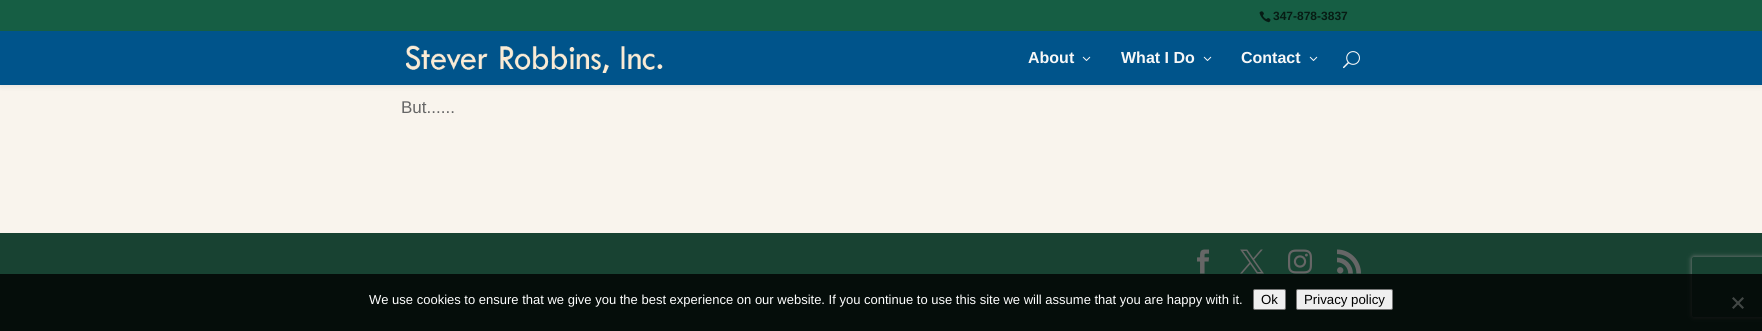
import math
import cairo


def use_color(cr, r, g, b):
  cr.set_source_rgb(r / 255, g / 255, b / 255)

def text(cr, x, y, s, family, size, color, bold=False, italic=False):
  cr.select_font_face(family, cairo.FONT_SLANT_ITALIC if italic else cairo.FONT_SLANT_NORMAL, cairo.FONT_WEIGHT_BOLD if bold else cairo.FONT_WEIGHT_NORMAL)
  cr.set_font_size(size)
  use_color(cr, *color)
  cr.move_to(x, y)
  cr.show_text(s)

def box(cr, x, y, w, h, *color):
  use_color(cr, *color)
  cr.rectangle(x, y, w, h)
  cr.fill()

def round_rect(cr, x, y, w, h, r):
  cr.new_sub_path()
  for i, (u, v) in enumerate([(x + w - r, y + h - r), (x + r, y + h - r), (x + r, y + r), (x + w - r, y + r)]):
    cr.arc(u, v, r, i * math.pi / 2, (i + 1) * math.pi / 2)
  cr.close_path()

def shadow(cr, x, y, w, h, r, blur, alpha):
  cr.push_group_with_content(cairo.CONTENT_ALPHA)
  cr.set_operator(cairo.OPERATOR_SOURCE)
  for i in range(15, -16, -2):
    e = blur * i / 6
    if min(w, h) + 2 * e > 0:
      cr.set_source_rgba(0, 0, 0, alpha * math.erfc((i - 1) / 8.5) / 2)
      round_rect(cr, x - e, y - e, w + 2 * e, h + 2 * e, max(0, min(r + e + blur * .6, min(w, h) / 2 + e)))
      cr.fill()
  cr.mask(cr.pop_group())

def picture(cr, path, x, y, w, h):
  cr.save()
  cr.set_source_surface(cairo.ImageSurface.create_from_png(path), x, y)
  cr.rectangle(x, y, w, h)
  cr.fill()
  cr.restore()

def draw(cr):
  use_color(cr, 249, 244, 237)
  cr.paint()
  use_color(cr, 0, 0, 0)
  shadow(cr, 0, 31, 1762, 54, 0, 3.5, 0.1)
  box(cr, 0, 0, 1762, 31, 22, 94, 68)
  picture(cr, "img_01.png", 1259, 11, 12, 12)
  box(cr, 0, 31, 1762, 54, 0, 84, 139)
  picture(cr, "img_02.png", 406, 45, 257, 28)
  picture(cr, "img_03.png", 1082, 56, 9, 5)
  picture(cr, "img_03.png", 1203, 56, 9, 5)
  picture(cr, "img_03.png", 1309, 56, 9, 5)
  picture(cr, "img_04.png", 1343, 51, 17, 18)
  box(cr, 0, 233, 1762, 98, 24, 66, 50)
  picture(cr, "img_05.png", 1197, 249, 12, 25)
  picture(cr, "img_06.png", 1240, 249, 24, 25)
  picture(cr, "img_07.png", 1288, 249, 24, 25)
  picture(cr, "img_08.png", 1337, 249, 24, 25)
  cr.save()
  cr.set_fill_rule(cairo.FILL_RULE_EVEN_ODD)
  cr.new_path()
  cr.move_to(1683, 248)
  cr.line_to(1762, 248)
  cr.line_to(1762, 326)
  cr.line_to(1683, 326)
  cr.close_path()
  cr.move_to(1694, 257)
  cr.line_to(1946, 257)
  cr.curve_to(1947, 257, 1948, 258, 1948, 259)
  cr.line_to(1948, 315)
  cr.curve_to(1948, 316, 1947, 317, 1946, 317)
  cr.line_to(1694, 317)
  cr.curve_to(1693, 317, 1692, 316, 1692, 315)
  cr.line_to(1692, 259)
  cr.curve_to(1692, 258, 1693, 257, 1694, 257)
  cr.close_path()
  cr.clip()
  use_color(cr, 128, 128, 128)
  shadow(cr, 1692, 257, 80, 60, 2, 2.5, 1)
  cr.restore()
  cr.set_source_rgba(0, 0, 0, 0.8)
  cr.rectangle(0, 274, 1762, 57)
  cr.fill()
  use_color(cr, 239, 239, 239)
  round_rect(cr, 1253.5, 289.5, 32, 20, 1.5)
  cr.fill_preserve()
  use_color(cr, 118, 118, 118)
  cr.set_line_width(1)
  cr.stroke()
  use_color(cr, 239, 239, 239)
  round_rect(cr, 1296.5, 289.5, 96, 20, 1.5)
  cr.fill_preserve()
  use_color(cr, 118, 118, 118)
  cr.stroke()
  use_color(cr, 66, 71, 69)
  cr.new_path()
  cr.move_to(1742.5, 297)
  cr.line_to(1744, 298.5)
  cr.line_to(1733.5, 309)
  cr.line_to(1732, 307.5)
  cr.close_path()
  cr.fill()
  cr.new_path()
  cr.move_to(1732, 298.5)
  cr.line_to(1733.5, 297)
  cr.line_to(1744, 307.5)
  cr.line_to(1742.5, 309)
  cr.close_path()
  cr.fill()
  text(cr, 1273, 20, "347-878-3837", "Liberation Sans", 12, (7, 28, 20), bold=True)
  text(cr, 1028, 63, "About", "Liberation Sans", 16, (247, 247, 247), bold=True)
  text(cr, 1121, 63, "What I Do", "Liberation Sans", 16, (247, 247, 247), bold=True)
  text(cr, 1241, 63, "Contact", "Liberation Sans", 16, (247, 247, 247), bold=True)
  text(cr, 401, 113, "But......", "Liberation Sans", 17, (102, 102, 102))
  text(cr, 369, 304, "We use cookies to ensure that we give you the best experience on our website. If you continue to use this site we will assume that you are happy with it.", "Liberation Sans", 13, (255, 255, 255))
  text(cr, 1261, 304, "Ok", "Liberation Sans", 13.25, (0, 0, 0))
  text(cr, 1304, 304, "Privacy policy", "Liberation Sans", 13.25, (0, 0, 0))


surface = cairo.ImageSurface(cairo.FORMAT_RGB24, 1762, 331)
cr = cairo.Context(surface)
options = cairo.FontOptions()
options.set_hint_metrics(cairo.HINT_METRICS_OFF)
options.set_hint_style(cairo.HINT_STYLE_NONE)
cr.set_font_options(options)
cr.set_miter_limit(4)
draw(cr)
surface.write_to_png("out.png")
